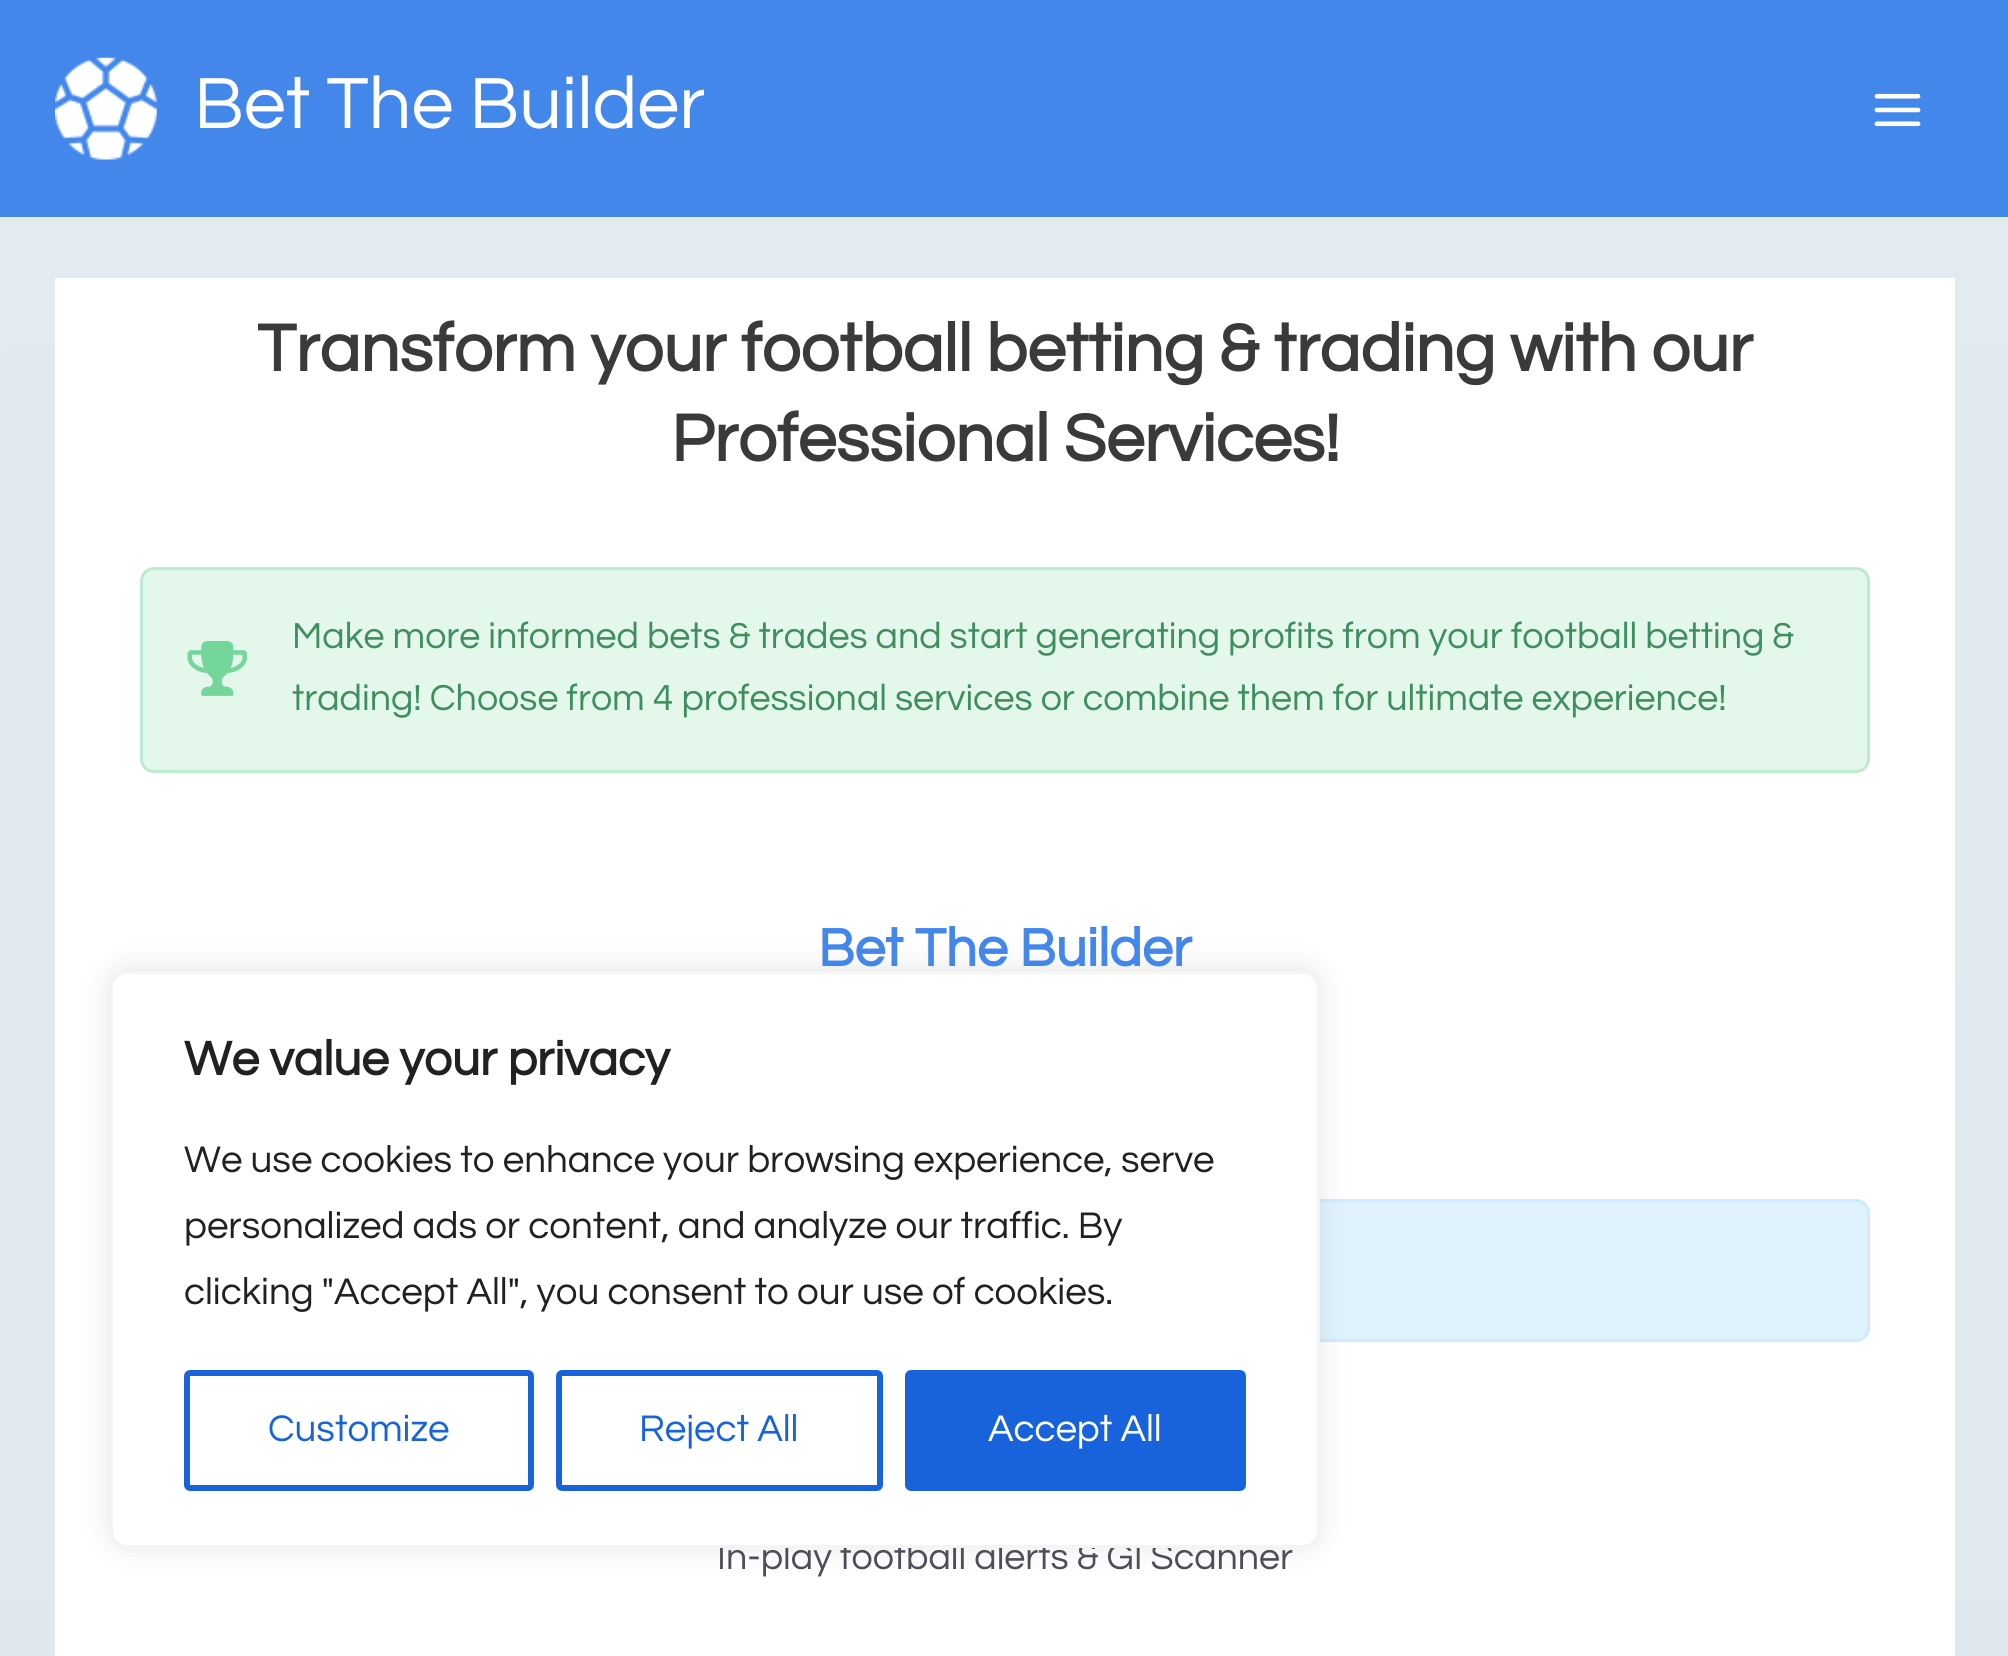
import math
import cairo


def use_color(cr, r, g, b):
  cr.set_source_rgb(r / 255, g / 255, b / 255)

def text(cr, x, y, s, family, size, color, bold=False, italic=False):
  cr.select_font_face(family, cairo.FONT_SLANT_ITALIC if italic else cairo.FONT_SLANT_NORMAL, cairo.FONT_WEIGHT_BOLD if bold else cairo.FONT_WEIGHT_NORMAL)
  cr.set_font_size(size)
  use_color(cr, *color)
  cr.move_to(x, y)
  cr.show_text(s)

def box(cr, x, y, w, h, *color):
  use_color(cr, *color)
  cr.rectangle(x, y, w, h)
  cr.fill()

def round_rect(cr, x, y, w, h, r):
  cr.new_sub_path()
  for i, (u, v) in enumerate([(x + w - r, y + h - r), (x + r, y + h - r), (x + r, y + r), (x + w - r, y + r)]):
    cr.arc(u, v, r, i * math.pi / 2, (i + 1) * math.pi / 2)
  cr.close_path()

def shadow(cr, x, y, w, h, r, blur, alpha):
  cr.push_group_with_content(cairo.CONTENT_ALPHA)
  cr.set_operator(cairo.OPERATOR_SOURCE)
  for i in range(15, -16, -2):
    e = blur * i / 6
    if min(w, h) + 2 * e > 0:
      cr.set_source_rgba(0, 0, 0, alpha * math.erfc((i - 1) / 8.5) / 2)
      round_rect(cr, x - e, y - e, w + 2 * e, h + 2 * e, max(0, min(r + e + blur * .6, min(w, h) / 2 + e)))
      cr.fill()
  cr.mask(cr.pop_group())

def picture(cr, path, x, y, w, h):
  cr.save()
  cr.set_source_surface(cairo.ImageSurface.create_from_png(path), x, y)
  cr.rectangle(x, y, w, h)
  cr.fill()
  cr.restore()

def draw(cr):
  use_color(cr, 255, 255, 255)
  cr.paint()
  gradient = cairo.RadialGradient(1005, 12455, 0, 1005, 12455, 12495)
  gradient.add_color_stop_rgba(0, 0.812, 0.851, 0.875, 1)
  gradient.add_color_stop_rgba(0.25, 0.831, 0.867, 0.89, 1)
  gradient.add_color_stop_rgba(0.5, 0.847, 0.886, 0.906, 1)
  gradient.add_color_stop_rgba(0.75, 0.867, 0.902, 0.925, 1)
  gradient.add_color_stop_rgba(1, 0.886, 0.922, 0.941, 1)
  cr.set_source(gradient)
  cr.rectangle(0, 220, 2008, 1436)
  cr.fill()
  box(cr, 0, 0, 2008, 217, 67, 135, 235)
  box(cr, 0, 217, 2008, 3, 234, 234, 234)
  picture(cr, "img_01.png", 55, 57, 102, 103)
  picture(cr, "img_02.png", 1874, 93, 47, 34)
  box(cr, 55, 278, 1900, 1378, 255, 255, 255)
  use_color(cr, 227, 247, 235)
  round_rect(cr, 141.5, 568.5, 1727, 203, 12.5)
  cr.fill_preserve()
  use_color(cr, 188, 235, 207)
  cr.set_line_width(3)
  cr.stroke()
  picture(cr, "img_03.png", 187, 641, 60, 55)
  use_color(cr, 223, 242, 254)
  round_rect(cr, 141.5, 1200.5, 1727, 140, 12.5)
  cr.fill_preserve()
  use_color(cr, 207, 235, 254)
  cr.stroke()
  use_color(cr, 172, 171, 171)
  shadow(cr, 110, 968, 1210, 578, 17, 14, 0.3)
  text(cr, 194, 128, "Bet The Builder", "Questrial", 75.25, (255, 255, 255))
  text(cr, 257, 371, "Transform your football betting & trading with our", "Questrial", 68.75, (58, 58, 58), bold=True)
  text(cr, 671, 461, "Professional Services!", "Questrial", 68.75, (58, 58, 58), bold=True)
  text(cr, 292, 648, "Make more informed bets & trades and start generating profits from your football betting &", "Questrial", 37.6, (62, 142, 94))
  text(cr, 292, 710, "trading! Choose from 4 professional services or combine them for ultimate experience!", "Questrial", 37.6, (62, 142, 94))
  text(cr, 818, 966, "Bet The Builder", "Questrial", 55, (67, 135, 235), bold=True)
  text(cr, 717, 1569, "In-play football alerts & GI Scanner", "Questrial", 37.6, (75, 79, 88))
  use_color(cr, 255, 255, 255)
  round_rect(cr, 111.5, 972.5, 1207, 574, 15.5)
  cr.fill_preserve()
  use_color(cr, 244, 244, 244)
  cr.stroke()
  text(cr, 184, 1075, "We value your privacy", "Questrial", 49.5, (33, 33, 33), bold=True)
  text(cr, 184, 1172, "We use cookies to enhance your browsing experience, serve", "Questrial", 38.5, (33, 33, 33))
  text(cr, 184, 1238, "personalized ads or content, and analyze our traffic. By", "Questrial", 38.5, (33, 33, 33))
  text(cr, 184, 1304, "clicking \"Accept All\", you consent to our use of cookies.", "Questrial", 38.5, (33, 33, 33))
  round_rect(cr, 187, 1373, 344, 115, 3)
  use_color(cr, 24, 99, 220)
  cr.set_line_width(6)
  cr.stroke()
  text(cr, 268, 1441, "Customize", "Questrial", 38.5, (24, 99, 220))
  round_rect(cr, 559, 1373, 321, 115, 3)
  cr.stroke()
  text(cr, 639, 1441, "Reject All", "Questrial", 38.5, (24, 99, 220))
  round_rect(cr, 908, 1373, 335, 115, 3)
  cr.fill_preserve()
  cr.stroke()
  text(cr, 988, 1441, "Accept All", "Questrial", 38.5, (255, 255, 255))


surface = cairo.ImageSurface(cairo.FORMAT_RGB24, 2008, 1656)
cr = cairo.Context(surface)
options = cairo.FontOptions()
options.set_hint_metrics(cairo.HINT_METRICS_OFF)
options.set_hint_style(cairo.HINT_STYLE_NONE)
cr.set_font_options(options)
cr.set_miter_limit(4)
draw(cr)
surface.write_to_png("out.png")
